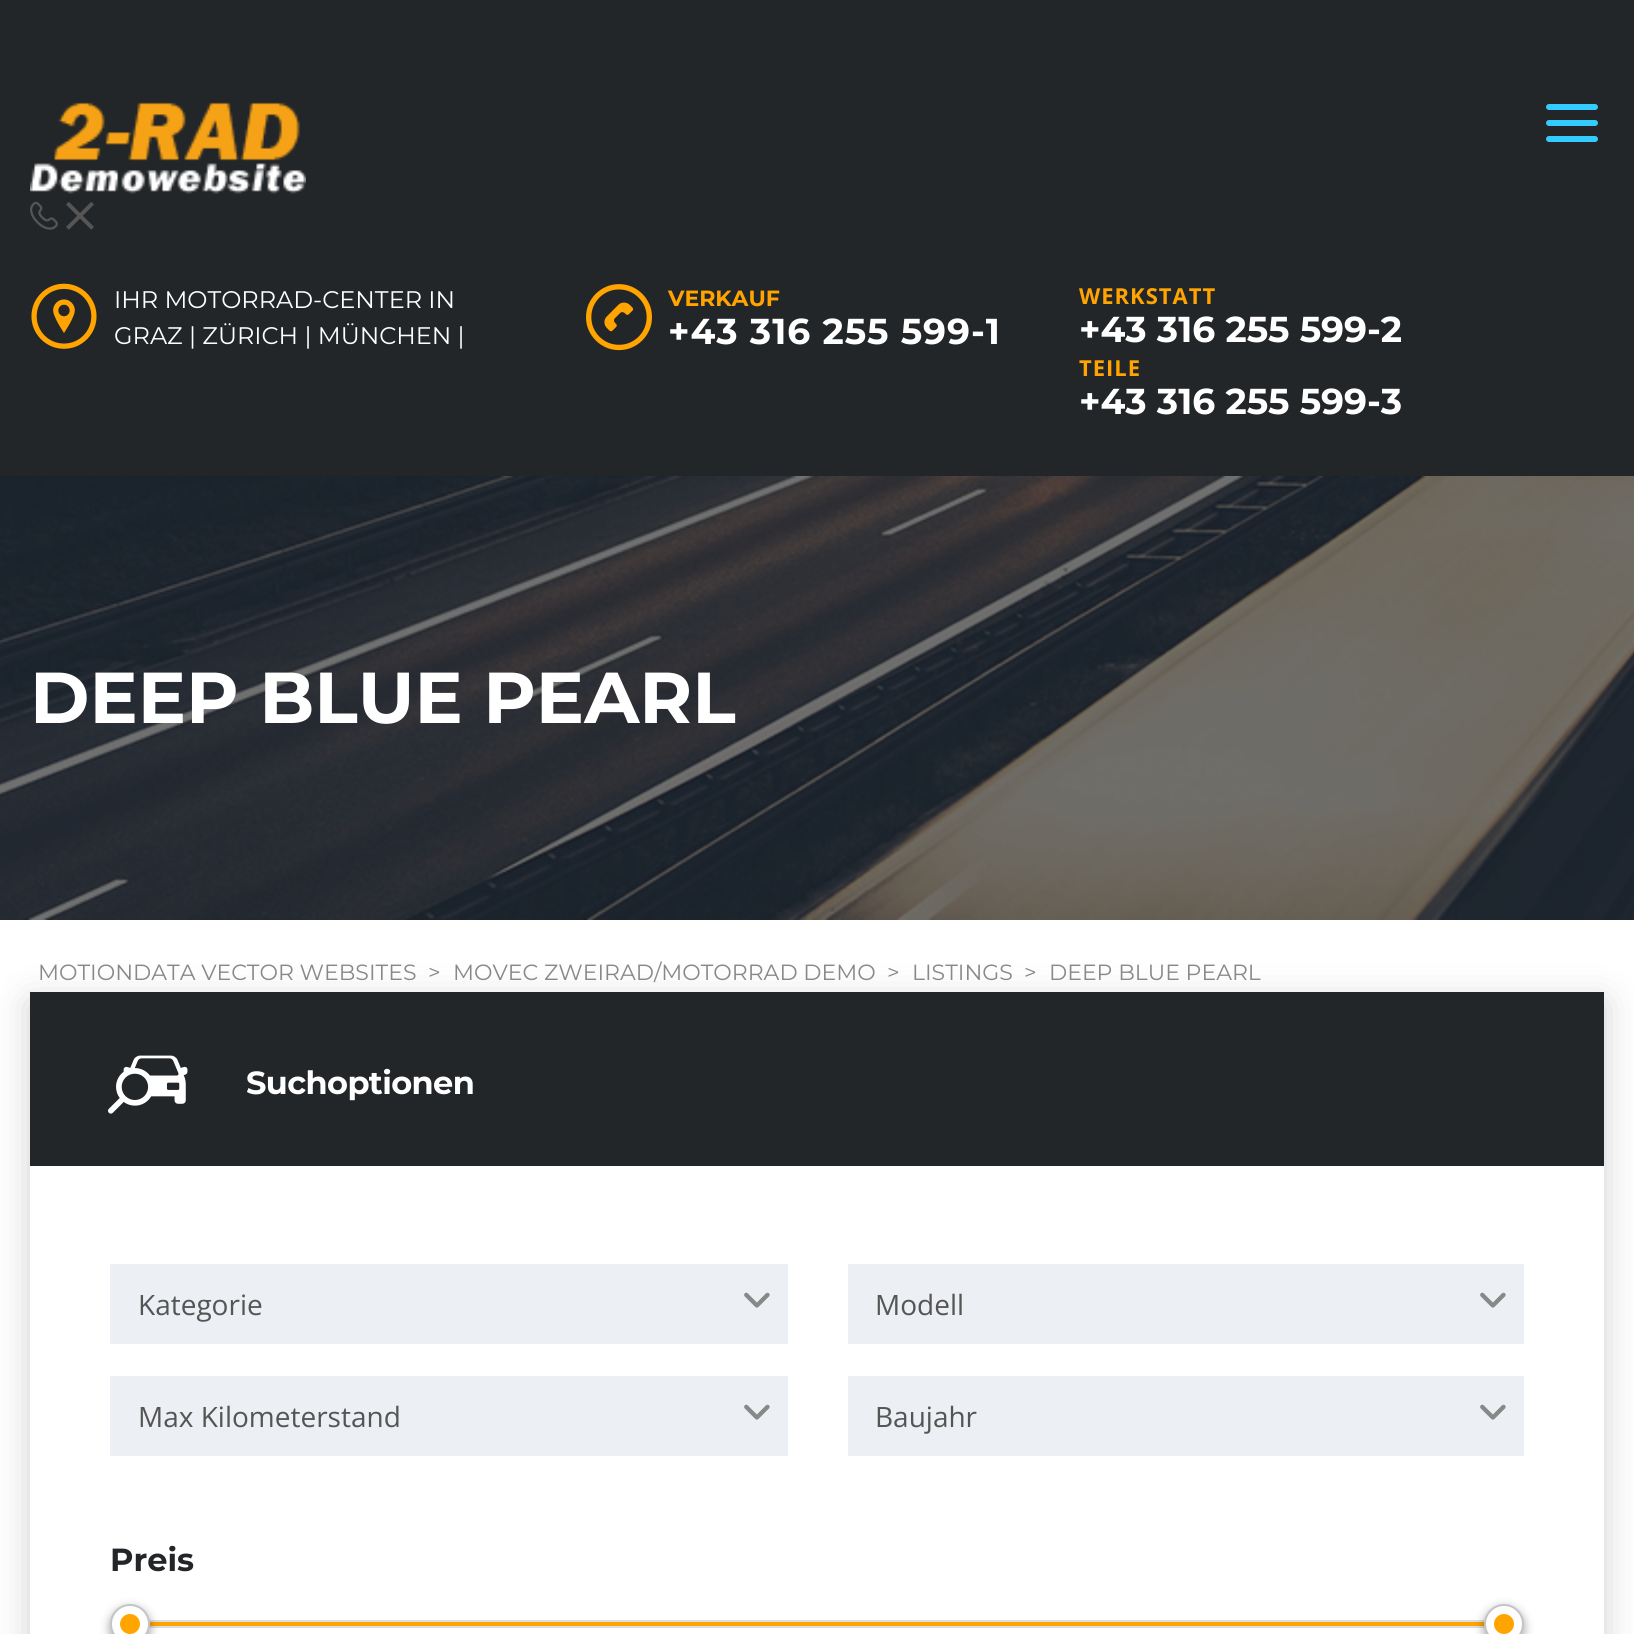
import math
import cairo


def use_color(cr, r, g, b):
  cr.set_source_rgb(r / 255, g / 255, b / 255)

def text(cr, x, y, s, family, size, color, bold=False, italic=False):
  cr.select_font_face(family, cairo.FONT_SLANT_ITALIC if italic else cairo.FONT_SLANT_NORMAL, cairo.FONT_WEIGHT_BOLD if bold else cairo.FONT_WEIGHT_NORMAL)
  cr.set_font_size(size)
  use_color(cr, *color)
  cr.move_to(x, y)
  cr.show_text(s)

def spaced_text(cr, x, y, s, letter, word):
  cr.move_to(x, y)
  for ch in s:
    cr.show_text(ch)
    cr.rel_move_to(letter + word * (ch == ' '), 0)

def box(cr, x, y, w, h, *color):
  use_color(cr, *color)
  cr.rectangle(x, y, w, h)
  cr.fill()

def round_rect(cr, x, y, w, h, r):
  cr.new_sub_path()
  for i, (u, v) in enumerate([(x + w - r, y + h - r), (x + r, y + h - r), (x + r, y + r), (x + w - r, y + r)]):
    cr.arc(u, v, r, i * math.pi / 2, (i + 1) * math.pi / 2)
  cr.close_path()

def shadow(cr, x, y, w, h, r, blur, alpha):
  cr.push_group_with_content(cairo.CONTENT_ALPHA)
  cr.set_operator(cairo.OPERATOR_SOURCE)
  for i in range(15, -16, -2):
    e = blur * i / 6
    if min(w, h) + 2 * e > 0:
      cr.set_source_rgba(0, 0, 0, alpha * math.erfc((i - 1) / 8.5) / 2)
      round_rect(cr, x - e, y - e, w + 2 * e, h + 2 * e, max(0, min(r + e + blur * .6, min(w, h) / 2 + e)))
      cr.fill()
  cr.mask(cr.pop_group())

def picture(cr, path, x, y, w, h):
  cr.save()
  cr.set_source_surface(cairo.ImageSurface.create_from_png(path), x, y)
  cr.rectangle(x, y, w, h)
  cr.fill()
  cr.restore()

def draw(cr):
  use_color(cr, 255, 255, 255)
  cr.paint()
  box(cr, 0, 0, 1634, 476, 35, 38, 40)
  picture(cr, "img_01.png", 30, 102, 276, 92)
  use_color(cr, 52, 204, 255)
  round_rect(cr, 1546, 104, 52, 6, 3)
  cr.fill()
  round_rect(cr, 1546, 120, 52, 6, 3)
  cr.fill()
  round_rect(cr, 1546, 136, 52, 6, 3)
  cr.fill()
  picture(cr, "img_02.png", 30, 201, 28, 29)
  picture(cr, "img_03.png", 66, 202, 28, 28)
  picture(cr, "img_04.png", 31, 283, 66, 66)
  picture(cr, "img_05.png", 586, 284, 66, 67)
  picture(cr, "img_06.png", 0, 476, 1634, 444)
  use_color(cr, 0, 0, 0)
  shadow(cr, 30, 1002, 1574, 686, 0, 18, 0.18)
  box(cr, 30, 1166, 1574, 468, 255, 255, 255)
  box(cr, 30, 992, 1574, 174, 35, 38, 40)
  picture(cr, "img_07.png", 108, 1055, 80, 59)
  box(cr, 110, 1264, 678, 80, 236, 239, 243)
  picture(cr, "img_08.png", 744, 1292, 26, 16)
  box(cr, 848, 1264, 676, 80, 236, 239, 243)
  picture(cr, "img_08.png", 1480, 1292, 26, 16)
  box(cr, 110, 1376, 678, 80, 236, 239, 243)
  picture(cr, "img_08.png", 744, 1404, 26, 16)
  box(cr, 848, 1376, 676, 80, 236, 239, 243)
  picture(cr, "img_08.png", 1480, 1404, 26, 16)
  cr.rectangle(129, 1621, 1376, 6)
  use_color(cr, 221, 221, 221)
  cr.stroke()
  box(cr, 149, 1622, 1336, 4, 255, 164, 0)
  use_color(cr, 0, 0, 0)
  shadow(cr, 110, 1608, 40, 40, 20, 5, 0.36)
  use_color(cr, 255, 255, 255)
  cr.arc(130, 1624, 19, 0, 2 * math.pi)
  cr.fill_preserve()
  use_color(cr, 197, 197, 197)
  cr.stroke()
  use_color(cr, 255, 164, 0)
  cr.arc(130, 1624, 10, 0, 2 * math.pi)
  cr.fill()
  use_color(cr, 0, 0, 0)
  shadow(cr, 1484, 1608, 40, 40, 20, 5, 0.36)
  use_color(cr, 255, 255, 255)
  cr.arc(1504, 1624, 19, 0, 2 * math.pi)
  cr.fill_preserve()
  use_color(cr, 197, 197, 197)
  cr.stroke()
  use_color(cr, 255, 164, 0)
  cr.arc(1504, 1624, 10, 0, 2 * math.pi)
  cr.fill()
  text(cr, 114, 308, "IHR MOTORRAD-CENTER IN", "Montserrat", 24, (255, 255, 255))
  text(cr, 114, 344, "GRAZ | ZÜRICH | MÜNCHEN |", "Montserrat", 24, (255, 255, 255))
  text(cr, 668, 306, "VERKAUF", "Montserrat", 22, (255, 164, 0), bold=True)
  cr.set_font_size(36)
  use_color(cr, 255, 255, 255)
  spaced_text(cr, 668, 344, "+43 316 255 599-1", 1, 0)
  cr.select_font_face("Open Sans", cairo.FONT_SLANT_NORMAL, cairo.FONT_WEIGHT_BOLD)
  cr.set_font_size(22)
  use_color(cr, 255, 164, 0)
  spaced_text(cr, 1079, 304, "WERKSTATT", 1, 0)
  text(cr, 1079, 342, "+43 316 255 599-2", "Montserrat", 36, (255, 255, 255), bold=True)
  cr.select_font_face("Open Sans", cairo.FONT_SLANT_NORMAL, cairo.FONT_WEIGHT_BOLD)
  cr.set_font_size(22)
  use_color(cr, 255, 164, 0)
  spaced_text(cr, 1079, 376, "TEILE", 1, 0)
  text(cr, 1079, 414, "+43 316 255 599-3", "Montserrat", 36, (255, 255, 255), bold=True)
  text(cr, 30, 723, "DEEP BLUE PEARL", "Montserrat", 72, (255, 255, 255), bold=True)
  text(cr, 38, 980, "MOTIONDATA VECTOR WEBSITES", "Montserrat", 22, (136, 136, 136))
  text(cr, 428, 980, ">", "Montserrat", 22, (136, 136, 136))
  text(cr, 453, 980, "MOVEC ZWEIRAD/MOTORRAD DEMO", "Montserrat", 22, (136, 136, 136))
  text(cr, 887, 980, ">", "Montserrat", 22, (136, 136, 136))
  text(cr, 912, 980, "LISTINGS", "Montserrat", 22, (136, 136, 136))
  text(cr, 1024, 980, ">", "Montserrat", 22, (136, 136, 136))
  text(cr, 1049, 980, "DEEP BLUE PEARL", "Montserrat", 22, (136, 136, 136))
  cr.select_font_face("Montserrat", cairo.FONT_SLANT_NORMAL, cairo.FONT_WEIGHT_BOLD)
  cr.set_font_size(32)
  use_color(cr, 255, 255, 255)
  spaced_text(cr, 246, 1094, "Suchoptionen", -0.6, 0)
  text(cr, 138, 1315, "Kategorie", "Open Sans", 28, (85, 85, 85))
  text(cr, 875, 1315, "Modell", "Open Sans", 28, (85, 85, 85))
  text(cr, 138, 1427, "Max Kilometerstand", "Open Sans", 28, (85, 85, 85))
  text(cr, 875, 1427, "Baujahr", "Open Sans", 28, (85, 85, 85))
  text(cr, 110, 1571, "Preis", "Montserrat", 32, (35, 38, 40), bold=True)


surface = cairo.ImageSurface(cairo.FORMAT_RGB24, 1634, 1634)
cr = cairo.Context(surface)
options = cairo.FontOptions()
options.set_hint_metrics(cairo.HINT_METRICS_OFF)
options.set_hint_style(cairo.HINT_STYLE_NONE)
cr.set_font_options(options)
cr.set_miter_limit(4)
draw(cr)
surface.write_to_png("out.png")
